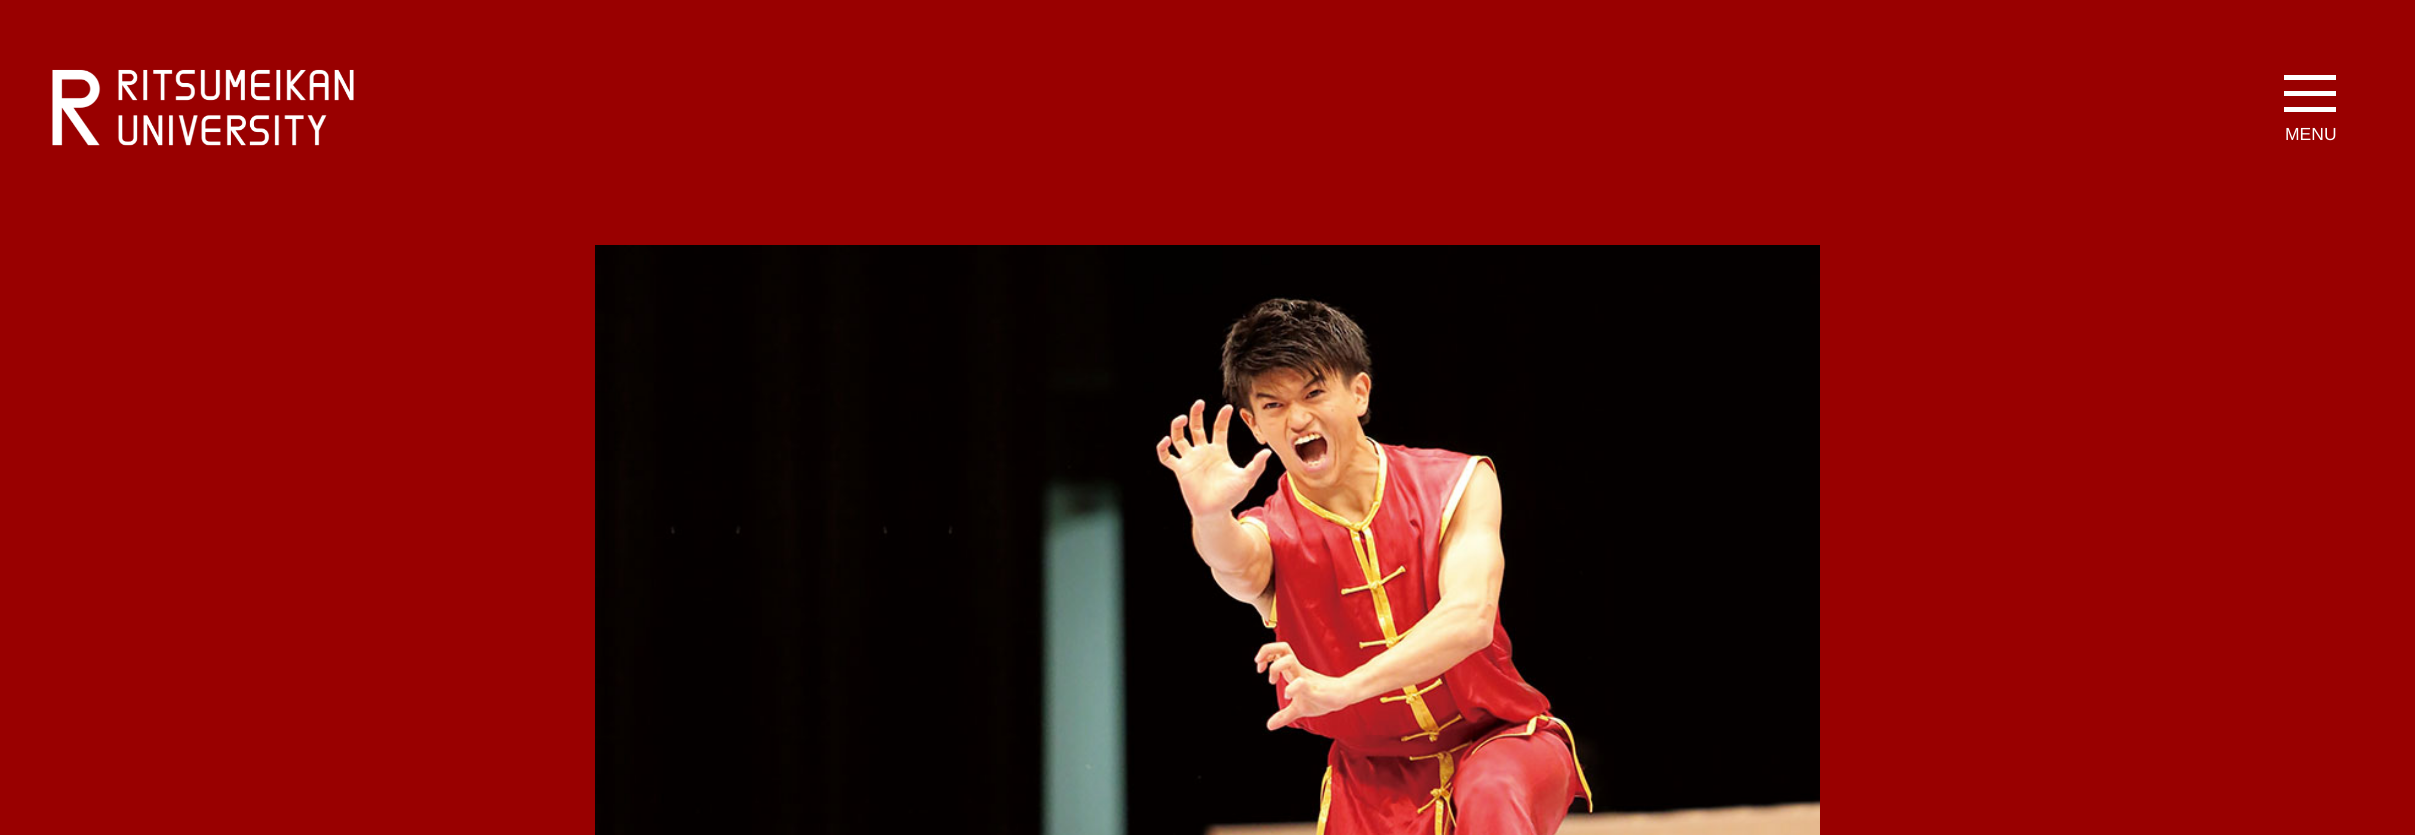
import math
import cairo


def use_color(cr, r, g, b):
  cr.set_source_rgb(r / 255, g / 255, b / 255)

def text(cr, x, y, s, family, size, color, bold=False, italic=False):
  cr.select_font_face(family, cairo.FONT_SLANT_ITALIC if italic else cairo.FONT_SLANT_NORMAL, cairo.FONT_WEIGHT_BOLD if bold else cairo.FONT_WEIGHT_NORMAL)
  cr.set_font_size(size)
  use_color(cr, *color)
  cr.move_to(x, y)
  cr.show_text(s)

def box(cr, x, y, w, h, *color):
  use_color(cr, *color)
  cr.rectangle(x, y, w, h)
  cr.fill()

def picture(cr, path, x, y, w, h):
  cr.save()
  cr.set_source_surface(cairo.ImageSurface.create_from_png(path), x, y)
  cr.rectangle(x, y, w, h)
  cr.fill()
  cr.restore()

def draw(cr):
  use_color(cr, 153, 0, 0)
  cr.paint()
  picture(cr, "img_01.png", 52, 69, 302, 77)
  box(cr, 2284, 91, 52, 5, 255, 255, 255)
  box(cr, 2284, 75, 52, 5, 255, 255, 255)
  box(cr, 2284, 107, 52, 5, 255, 255, 255)
  picture(cr, "img_02.png", 595, 245, 1225, 590)
  text(cr, 2285, 140, "MENU", "Liberation Sans", 17.5, (255, 255, 255))


surface = cairo.ImageSurface(cairo.FORMAT_RGB24, 2415, 835)
cr = cairo.Context(surface)
options = cairo.FontOptions()
options.set_hint_metrics(cairo.HINT_METRICS_OFF)
options.set_hint_style(cairo.HINT_STYLE_NONE)
cr.set_font_options(options)
cr.set_miter_limit(4)
draw(cr)
surface.write_to_png("out.png")
